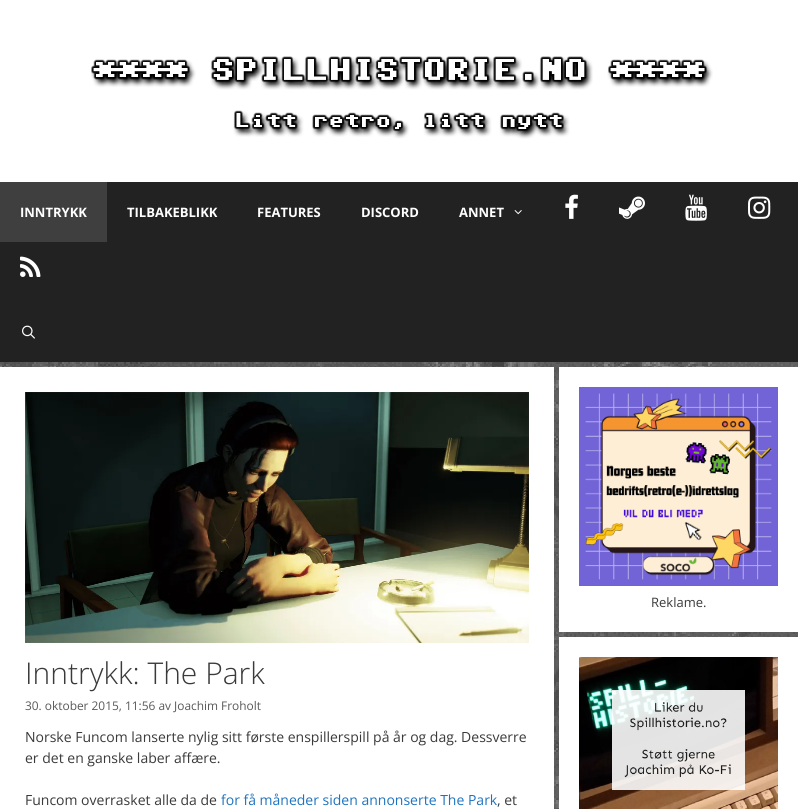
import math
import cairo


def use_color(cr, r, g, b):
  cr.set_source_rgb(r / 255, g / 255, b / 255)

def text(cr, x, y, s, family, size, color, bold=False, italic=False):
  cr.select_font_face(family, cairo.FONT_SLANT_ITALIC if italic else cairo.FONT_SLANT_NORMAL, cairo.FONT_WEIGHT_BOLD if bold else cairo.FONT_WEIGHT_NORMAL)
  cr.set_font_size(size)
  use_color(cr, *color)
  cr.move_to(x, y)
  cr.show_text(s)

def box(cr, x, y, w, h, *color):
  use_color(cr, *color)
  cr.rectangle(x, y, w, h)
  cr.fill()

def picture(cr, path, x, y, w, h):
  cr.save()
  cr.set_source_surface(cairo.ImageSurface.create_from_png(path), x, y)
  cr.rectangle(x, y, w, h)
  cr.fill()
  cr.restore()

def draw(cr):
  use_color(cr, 91, 91, 91)
  cr.paint()
  picture(cr, "img_01.png", 0, 362, 798, 447)
  box(cr, 0, 0, 798, 182, 255, 255, 255)
  picture(cr, "img_02.png", 91, 56, 622, 83)
  box(cr, 0, 182, 798, 180, 34, 34, 34)
  box(cr, 0, 182, 107, 60, 63, 63, 63)
  picture(cr, "img_03.png", 514, 210, 8, 5)
  picture(cr, "img_04.png", 565, 194, 13, 25)
  picture(cr, "img_05.png", 619, 196, 26, 23)
  picture(cr, "img_06.png", 685, 194, 22, 27)
  picture(cr, "img_07.png", 748, 196, 23, 23)
  picture(cr, "img_08.png", 20, 256, 21, 21)
  picture(cr, "img_09.png", 22, 325, 13, 14)
  box(cr, 559, 367, 239, 265, 255, 255, 255)
  picture(cr, "img_10.png", 579, 387, 199, 199)
  box(cr, 559, 637, 239, 172, 255, 255, 255)
  picture(cr, "img_11.png", 579, 657, 199, 152)
  box(cr, 0, 367, 554, 442, 255, 255, 255)
  picture(cr, "img_12.png", 25, 392, 504, 251)
  text(cr, 20, 217, "INNTRYKK", "Open Sans", 13, (255, 255, 255), bold=True)
  text(cr, 127, 217, "TILBAKEBLIKK", "Open Sans", 13, (255, 255, 255), bold=True)
  text(cr, 257, 217, "FEATURES", "Open Sans", 13, (255, 255, 255), bold=True)
  text(cr, 361, 217, "DISCORD", "Open Sans", 13, (255, 255, 255), bold=True)
  text(cr, 459, 217, "ANNET", "Open Sans", 13, (255, 255, 255), bold=True)
  text(cr, 651, 607, "Reklame.", "Open Sans", 13, (58, 58, 58))
  text(cr, 25, 684, "Inntrykk: The Park", "Open Sans Light", 30, (58, 58, 58))
  text(cr, 25, 710, "30. oktober 2015, 11:56 av Joachim Froholt", "Open Sans", 11.9, (89, 89, 89))
  text(cr, 25, 742, "Norske Funcom lanserte nylig sitt første enspillerspill på år og dag. Dessverre", "Open Sans", 14, (58, 58, 58))
  text(cr, 25, 763, "er det en ganske laber affære.", "Open Sans", 14, (58, 58, 58))
  text(cr, 25, 805, "Funcom overrasket alle da de", "Open Sans", 14, (58, 58, 58))
  text(cr, 221, 805, "for få måneder siden annonserte The Park", "Open Sans", 14, (30, 115, 190))
  text(cr, 497, 805, ", et", "Open Sans", 14, (58, 58, 58))


surface = cairo.ImageSurface(cairo.FORMAT_RGB24, 798, 809)
cr = cairo.Context(surface)
options = cairo.FontOptions()
options.set_hint_metrics(cairo.HINT_METRICS_OFF)
options.set_hint_style(cairo.HINT_STYLE_NONE)
cr.set_font_options(options)
cr.set_miter_limit(4)
draw(cr)
surface.write_to_png("out.png")
